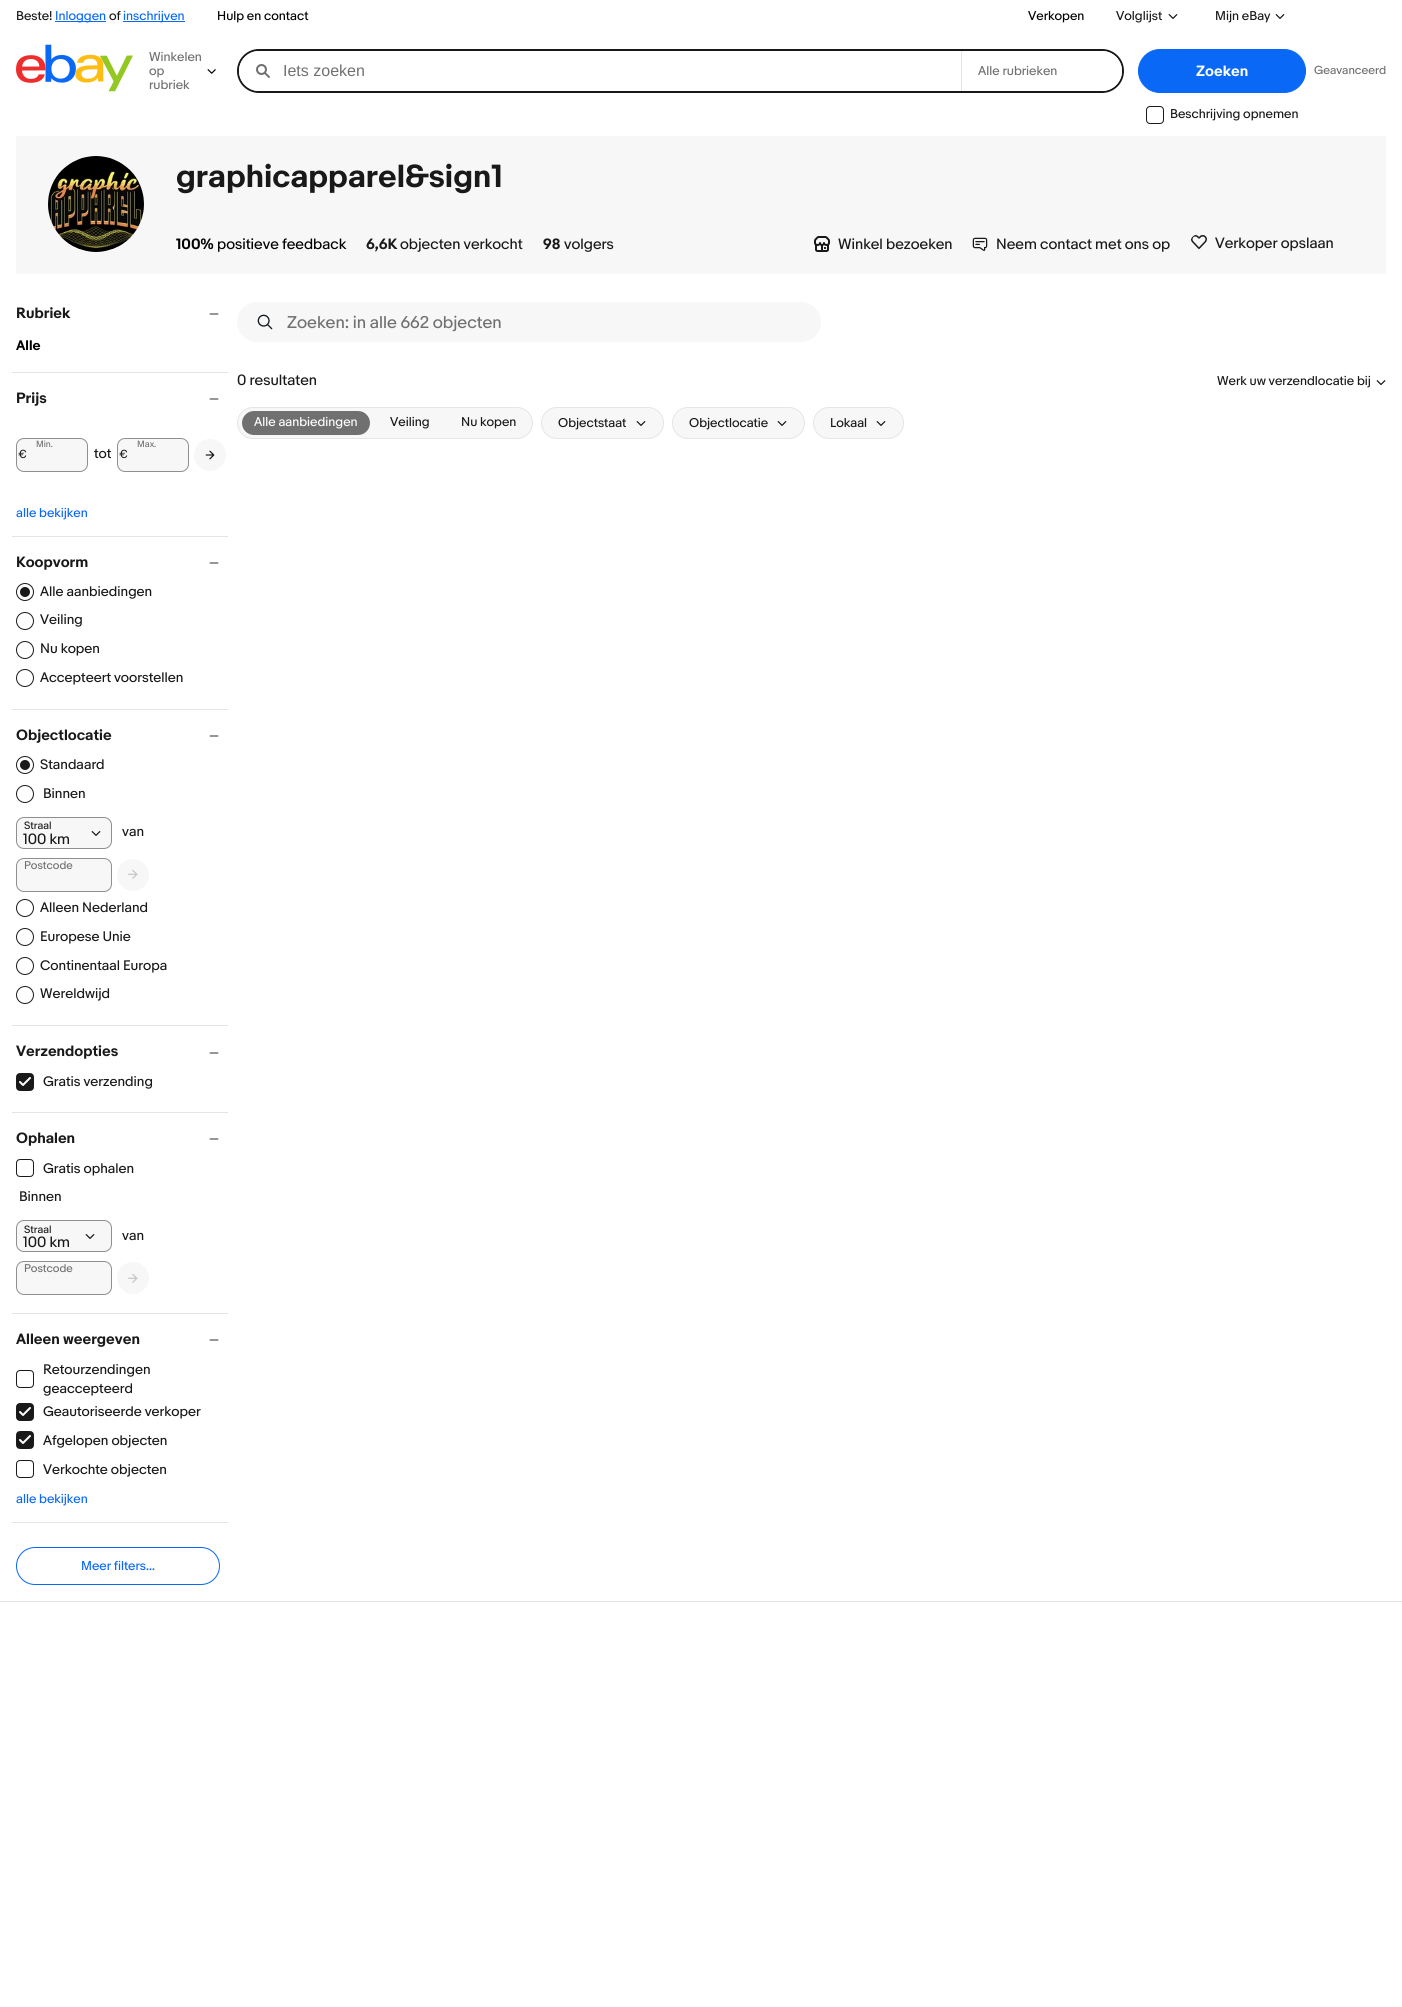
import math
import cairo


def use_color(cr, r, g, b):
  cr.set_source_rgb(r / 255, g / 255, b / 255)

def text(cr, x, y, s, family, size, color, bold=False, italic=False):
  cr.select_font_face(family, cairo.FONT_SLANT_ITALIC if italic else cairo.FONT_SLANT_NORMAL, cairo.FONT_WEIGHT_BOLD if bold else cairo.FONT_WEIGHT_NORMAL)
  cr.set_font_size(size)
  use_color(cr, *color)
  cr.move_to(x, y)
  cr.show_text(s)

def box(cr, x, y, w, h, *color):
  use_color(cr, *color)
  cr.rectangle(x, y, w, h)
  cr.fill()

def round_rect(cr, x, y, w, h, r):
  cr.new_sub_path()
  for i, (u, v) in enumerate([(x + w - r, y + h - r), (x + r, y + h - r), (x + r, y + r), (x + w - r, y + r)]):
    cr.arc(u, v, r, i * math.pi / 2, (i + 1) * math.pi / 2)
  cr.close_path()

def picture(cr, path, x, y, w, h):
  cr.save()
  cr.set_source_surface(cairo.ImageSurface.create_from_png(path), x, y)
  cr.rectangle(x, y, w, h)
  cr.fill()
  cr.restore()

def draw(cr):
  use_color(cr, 255, 255, 255)
  cr.paint()
  box(cr, 55, 21, 51, 1, 9, 104, 246)
  box(cr, 123, 21, 62, 1, 9, 104, 246)
  picture(cr, "img_01.png", 1168, 14, 10, 5)
  picture(cr, "img_01.png", 1275, 14, 10, 5)
  picture(cr, "img_02.png", 16, 44, 117, 48)
  picture(cr, "img_03.png", 207, 69, 9, 5)
  round_rect(cr, 238, 50, 885, 42, 21)
  use_color(cr, 25, 25, 25)
  cr.stroke()
  box(cr, 961, 51, 1, 40, 229, 229, 229)
  use_color(cr, 255, 255, 255)
  cr.new_path()
  cr.move_to(259, 51)
  cr.line_to(961, 51)
  cr.line_to(961, 91)
  cr.line_to(259, 91)
  cr.curve_to(248, 91, 239, 82, 239, 71)
  cr.curve_to(239, 60, 248, 51, 259, 51)
  cr.close_path()
  cr.fill()
  picture(cr, "img_04.png", 256, 64, 14, 14)
  cr.new_path()
  cr.move_to(962, 51)
  cr.line_to(1102, 51)
  cr.curve_to(1113, 51, 1122, 60, 1122, 71)
  cr.curve_to(1122, 82, 1113, 91, 1102, 91)
  cr.line_to(962, 91)
  cr.close_path()
  cr.fill()
  use_color(cr, 9, 104, 246)
  round_rect(cr, 1138.5, 49.5, 167, 43, 21.5)
  cr.fill_preserve()
  cr.set_line_width(1)
  cr.stroke()
  picture(cr, "img_05.png", 1146, 106, 18, 18)
  box(cr, 16, 136, 1370, 138, 247, 247, 247)
  picture(cr, "img_06.png", 48, 156, 96, 96)
  picture(cr, "img_07.png", 814, 236, 16, 16)
  picture(cr, "img_08.png", 972, 237, 16, 14)
  picture(cr, "img_09.png", 1191, 235, 16, 14)
  box(cr, 12, 372, 216, 1, 229, 229, 229)
  picture(cr, "img_10.png", 209, 313, 10, 2)
  box(cr, 12, 536, 216, 1, 229, 229, 229)
  picture(cr, "img_10.png", 209, 398, 10, 2)
  use_color(cr, 247, 247, 247)
  round_rect(cr, 16.5, 438.5, 71, 33, 7.5)
  cr.fill_preserve()
  use_color(cr, 143, 143, 143)
  cr.stroke()
  use_color(cr, 247, 247, 247)
  round_rect(cr, 117.5, 438.5, 71, 33, 7.5)
  cr.fill_preserve()
  use_color(cr, 143, 143, 143)
  cr.stroke()
  use_color(cr, 247, 247, 247)
  cr.arc(210, 455, 16, 0, 2 * math.pi)
  cr.fill()
  picture(cr, "img_11.png", 205, 450, 10, 10)
  box(cr, 12, 709, 216, 1, 229, 229, 229)
  picture(cr, "img_10.png", 209, 562, 10, 2)
  picture(cr, "img_12.png", 16, 583, 18, 18)
  picture(cr, "img_13.png", 16, 612, 18, 18)
  picture(cr, "img_13.png", 16, 641, 18, 18)
  picture(cr, "img_13.png", 16, 669, 18, 18)
  box(cr, 12, 1025, 216, 1, 229, 229, 229)
  picture(cr, "img_10.png", 209, 735, 10, 2)
  picture(cr, "img_12.png", 16, 756, 18, 18)
  picture(cr, "img_13.png", 16, 785, 18, 18)
  use_color(cr, 247, 247, 247)
  round_rect(cr, 16.5, 817.5, 95, 31, 7.5)
  cr.fill_preserve()
  use_color(cr, 143, 143, 143)
  cr.stroke()
  picture(cr, "img_14.png", 91, 831, 10, 5)
  use_color(cr, 247, 247, 247)
  round_rect(cr, 16.5, 858.5, 95, 33, 7.5)
  cr.fill_preserve()
  use_color(cr, 143, 143, 143)
  cr.stroke()
  use_color(cr, 247, 247, 247)
  cr.arc(133, 875, 16, 0, 2 * math.pi)
  cr.fill()
  picture(cr, "img_15.png", 128, 869, 10, 10)
  picture(cr, "img_13.png", 16, 899, 18, 18)
  picture(cr, "img_13.png", 16, 928, 18, 18)
  picture(cr, "img_13.png", 16, 957, 18, 18)
  picture(cr, "img_13.png", 16, 986, 18, 18)
  box(cr, 12, 1112, 216, 1, 229, 229, 229)
  picture(cr, "img_10.png", 209, 1052, 10, 2)
  picture(cr, "img_16.png", 16, 1073, 18, 18)
  box(cr, 12, 1313, 216, 1, 229, 229, 229)
  picture(cr, "img_10.png", 209, 1138, 10, 2)
  picture(cr, "img_05.png", 16, 1159, 18, 18)
  use_color(cr, 247, 247, 247)
  round_rect(cr, 16.5, 1220.5, 95, 31, 7.5)
  cr.fill_preserve()
  use_color(cr, 143, 143, 143)
  cr.stroke()
  picture(cr, "img_14.png", 85, 1234, 10, 5)
  use_color(cr, 247, 247, 247)
  round_rect(cr, 16.5, 1261.5, 95, 33, 7.5)
  cr.fill_preserve()
  use_color(cr, 143, 143, 143)
  cr.stroke()
  use_color(cr, 247, 247, 247)
  cr.arc(133, 1278, 16, 0, 2 * math.pi)
  cr.fill()
  picture(cr, "img_15.png", 128, 1273, 10, 10)
  box(cr, 12, 1522, 216, 1, 229, 229, 229)
  picture(cr, "img_10.png", 209, 1339, 10, 2)
  picture(cr, "img_05.png", 16, 1370, 18, 18)
  picture(cr, "img_16.png", 16, 1403, 18, 18)
  picture(cr, "img_16.png", 16, 1431, 18, 18)
  picture(cr, "img_05.png", 16, 1460, 18, 18)
  round_rect(cr, 16.5, 1547.5, 203, 37, 18.5)
  use_color(cr, 9, 104, 246)
  cr.stroke()
  use_color(cr, 247, 247, 247)
  round_rect(cr, 237, 302, 584, 40, 20)
  cr.fill()
  picture(cr, "img_17.png", 257, 314, 16, 16)
  picture(cr, "img_18.png", 1376, 380, 10, 5)
  round_rect(cr, 237.5, 407.5, 295, 31, 15.5)
  cr.fill_preserve()
  use_color(cr, 229, 229, 229)
  cr.stroke()
  use_color(cr, 112, 112, 112)
  round_rect(cr, 242, 411, 128, 24, 12)
  cr.fill()
  use_color(cr, 247, 247, 247)
  round_rect(cr, 541.5, 407.5, 122, 31, 15.5)
  cr.fill_preserve()
  use_color(cr, 229, 229, 229)
  cr.stroke()
  picture(cr, "img_14.png", 636, 421, 10, 5)
  use_color(cr, 247, 247, 247)
  round_rect(cr, 672.5, 407.5, 132, 31, 15.5)
  cr.fill_preserve()
  use_color(cr, 229, 229, 229)
  cr.stroke()
  picture(cr, "img_14.png", 777, 421, 10, 5)
  use_color(cr, 247, 247, 247)
  round_rect(cr, 813.5, 407.5, 90, 31, 15.5)
  cr.fill_preserve()
  use_color(cr, 229, 229, 229)
  cr.stroke()
  picture(cr, "img_14.png", 876, 421, 10, 5)
  box(cr, 0, 1601, 1402, 1, 229, 229, 229)
  text(cr, 16, 20, "Beste!", "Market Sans", 12, (25, 25, 25))
  text(cr, 55, 20, "Inloggen", "Market Sans", 12, (9, 104, 246))
  text(cr, 109, 20, "of", "Market Sans", 12, (25, 25, 25))
  text(cr, 123, 20, "inschrijven", "Market Sans", 12, (9, 104, 246))
  text(cr, 217, 20, "Hulp en contact", "Market Sans", 12, (0, 0, 0))
  text(cr, 1028, 20, "Verkopen", "Market Sans", 12, (0, 0, 0))
  text(cr, 1116, 20, "Volglijst", "Market Sans", 12, (25, 25, 25))
  text(cr, 1215, 20, "Mijn eBay", "Market Sans", 12, (25, 25, 25))
  text(cr, 149, 61, "Winkelen", "Market Sans", 12, (112, 112, 112))
  text(cr, 149, 75, "op", "Market Sans", 12, (112, 112, 112))
  text(cr, 149, 89, "rubriek", "Market Sans", 12, (112, 112, 112))
  text(cr, 283, 76, "Iets zoeken", "Liberation Sans", 16, (112, 112, 112))
  text(cr, 978, 75, "Alle rubrieken", "Market Sans", 12, (112, 112, 112))
  text(cr, 1196, 76, "Zoeken", "Market Sans", 14, (255, 255, 255), bold=True)
  text(cr, 1314, 74, "Geavanceerd", "Market Sans", 11, (112, 112, 112))
  text(cr, 1170, 118, "Beschrijving opnemen", "Market Sans", 12, (25, 25, 25))
  text(cr, 176, 187, "graphicapparel&sign1", "Market Sans", 30, (25, 25, 25), bold=True)
  text(cr, 176, 249, "100%", "Market Sans", 14, (0, 0, 0), bold=True)
  text(cr, 217, 249, "positieve feedback", "Market Sans", 14, (0, 0, 0))
  text(cr, 366, 249, "6,6K", "Market Sans", 14, (25, 25, 25), bold=True)
  text(cr, 400, 249, "objecten verkocht", "Market Sans", 14, (25, 25, 25))
  text(cr, 543, 249, "98", "Market Sans", 14, (25, 25, 25), bold=True)
  text(cr, 564, 249, "volgers", "Market Sans", 14, (25, 25, 25))
  text(cr, 838, 249, "Winkel bezoeken", "Market Sans", 14, (25, 25, 25))
  text(cr, 996, 249, "Neem contact met ons op", "Market Sans", 14, (25, 25, 25))
  text(cr, 1215, 248, "Verkoper opslaan", "Market Sans", 14, (25, 25, 25))
  text(cr, 16, 318, "Rubriek", "Market Sans", 14, (25, 25, 25), bold=True)
  text(cr, 16, 350, "Alle", "Market Sans", 13, (0, 0, 0), bold=True)
  text(cr, 16, 403, "Prijs", "Market Sans", 14, (25, 25, 25), bold=True)
  text(cr, 36, 447, "Min.", "Market Sans", 8.5, (112, 112, 112))
  text(cr, 18, 458, "€", "Market Sans", 11, (25, 25, 25))
  text(cr, 94, 458, "tot", "Market Sans", 13, (25, 25, 25))
  text(cr, 137, 447, "Max.", "Market Sans", 8.5, (112, 112, 112))
  text(cr, 119, 458, "€", "Market Sans", 11, (25, 25, 25))
  text(cr, 16, 517, "alle bekijken", "Market Sans", 12, (9, 104, 246))
  text(cr, 16, 567, "Koopvorm", "Market Sans", 14, (25, 25, 25), bold=True)
  text(cr, 40, 596, "Alle aanbiedingen", "Market Sans", 13, (25, 25, 25))
  text(cr, 40, 624, "Veiling", "Market Sans", 13, (25, 25, 25))
  text(cr, 40, 653, "Nu kopen", "Market Sans", 13, (25, 25, 25))
  text(cr, 40, 682, "Accepteert voorstellen", "Market Sans", 13, (25, 25, 25))
  text(cr, 16, 740, "Objectlocatie", "Market Sans", 14, (25, 25, 25), bold=True)
  text(cr, 40, 769, "Standaard", "Market Sans", 13, (25, 25, 25))
  text(cr, 43, 798, "Binnen", "Market Sans", 13, (25, 25, 25))
  text(cr, 24, 829, "Straal", "Market Sans", 10, (25, 25, 25))
  text(cr, 23, 844, "100 km", "Market Sans", 14, (25, 25, 25))
  text(cr, 122, 836, "van", "Market Sans", 13, (25, 25, 25))
  text(cr, 24, 869, "Postcode", "Market Sans", 10.5, (112, 112, 112))
  text(cr, 40, 912, "Alleen Nederland", "Market Sans", 13, (25, 25, 25))
  text(cr, 40, 941, "Europese Unie", "Market Sans", 13, (25, 25, 25))
  text(cr, 40, 970, "Continentaal Europa", "Market Sans", 13, (25, 25, 25))
  text(cr, 40, 998, "Wereldwijd", "Market Sans", 13, (25, 25, 25))
  text(cr, 16, 1056, "Verzendopties", "Market Sans", 14, (25, 25, 25), bold=True)
  text(cr, 43, 1086, "Gratis verzending", "Market Sans", 13, (25, 25, 25))
  text(cr, 16, 1143, "Ophalen", "Market Sans", 14, (25, 25, 25), bold=True)
  text(cr, 43, 1173, "Gratis ophalen", "Market Sans", 13, (25, 25, 25))
  text(cr, 19, 1201, "Binnen", "Market Sans", 13, (25, 25, 25))
  text(cr, 24, 1233, "Straal", "Market Sans", 10, (25, 25, 25))
  text(cr, 23, 1247, "100 km", "Market Sans", 14, (25, 25, 25))
  text(cr, 122, 1240, "van", "Market Sans", 13, (25, 25, 25))
  text(cr, 24, 1272, "Postcode", "Market Sans", 10.5, (112, 112, 112))
  text(cr, 16, 1344, "Alleen weergeven", "Market Sans", 14, (25, 25, 25), bold=True)
  text(cr, 43, 1374, "Retourzendingen", "Market Sans", 13, (25, 25, 25))
  text(cr, 43, 1393, "geaccepteerd", "Market Sans", 13, (25, 25, 25))
  text(cr, 43, 1416, "Geautoriseerde verkoper", "Market Sans", 13, (25, 25, 25))
  text(cr, 43, 1445, "Afgelopen objecten", "Market Sans", 13, (25, 25, 25))
  text(cr, 43, 1474, "Verkochte objecten", "Market Sans", 13, (25, 25, 25))
  text(cr, 16, 1503, "alle bekijken", "Market Sans", 12, (9, 104, 246))
  text(cr, 81, 1570, "Meer filters...", "Market Sans", 12, (9, 104, 246))
  text(cr, 287, 328, "Zoeken: in alle 662 objecten", "Market Sans", 16, (112, 112, 112))
  text(cr, 237, 385, "0 resultaten", "Market Sans", 14, (25, 25, 25))
  text(cr, 1217, 385, "Werk uw verzendlocatie bij", "Market Sans", 12, (25, 25, 25))
  text(cr, 254, 426, "Alle aanbiedingen", "Market Sans", 12, (255, 255, 255))
  text(cr, 390, 426, "Veiling", "Market Sans", 12, (25, 25, 25))
  text(cr, 461, 426, "Nu kopen", "Market Sans", 12, (25, 25, 25))
  text(cr, 558, 427, "Objectstaat", "Market Sans", 12, (25, 25, 25))
  text(cr, 689, 427, "Objectlocatie", "Market Sans", 12, (25, 25, 25))
  text(cr, 830, 427, "Lokaal", "Market Sans", 12, (25, 25, 25))


surface = cairo.ImageSurface(cairo.FORMAT_RGB24, 1402, 2007)
cr = cairo.Context(surface)
options = cairo.FontOptions()
options.set_hint_metrics(cairo.HINT_METRICS_OFF)
options.set_hint_style(cairo.HINT_STYLE_NONE)
cr.set_font_options(options)
cr.set_miter_limit(4)
draw(cr)
surface.write_to_png("out.png")
